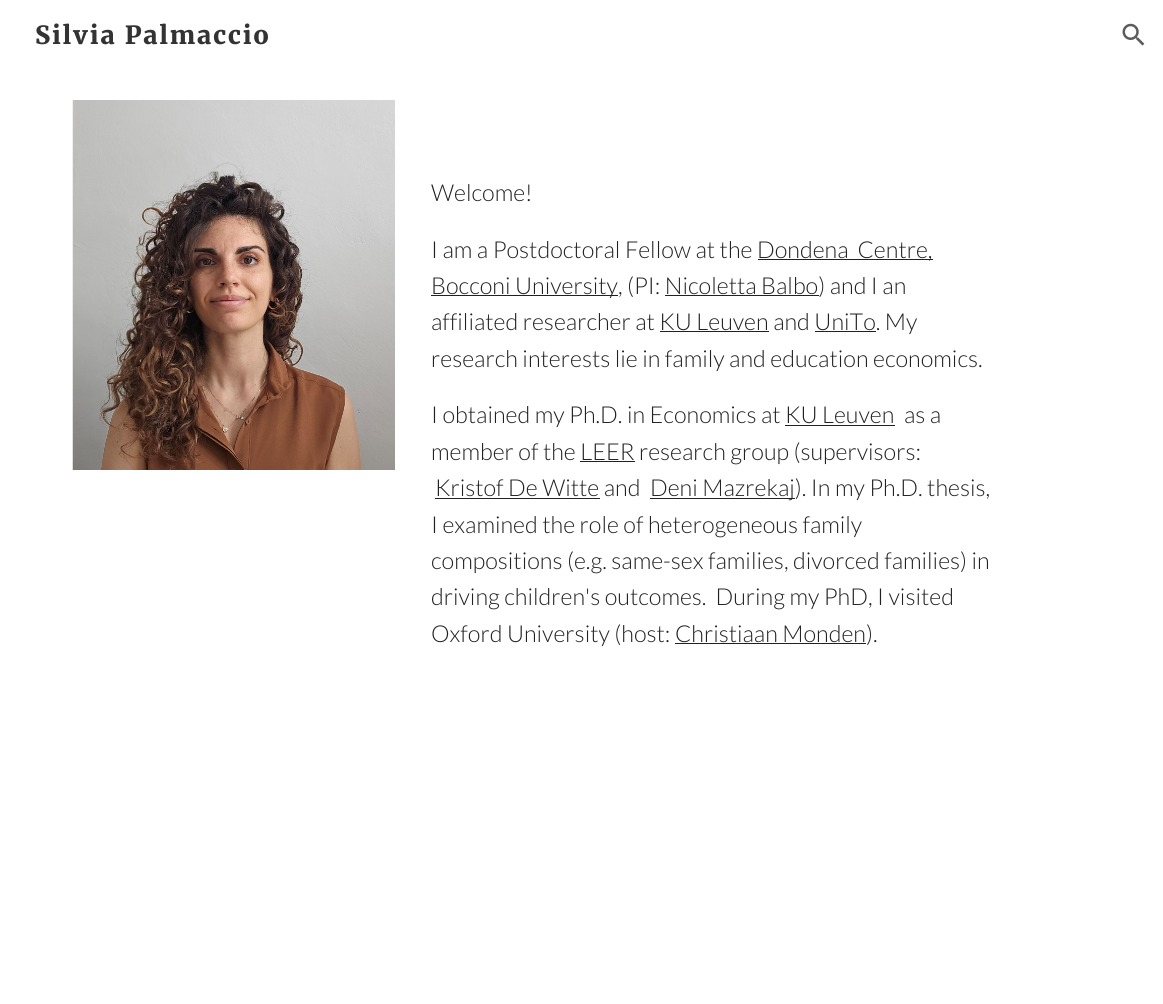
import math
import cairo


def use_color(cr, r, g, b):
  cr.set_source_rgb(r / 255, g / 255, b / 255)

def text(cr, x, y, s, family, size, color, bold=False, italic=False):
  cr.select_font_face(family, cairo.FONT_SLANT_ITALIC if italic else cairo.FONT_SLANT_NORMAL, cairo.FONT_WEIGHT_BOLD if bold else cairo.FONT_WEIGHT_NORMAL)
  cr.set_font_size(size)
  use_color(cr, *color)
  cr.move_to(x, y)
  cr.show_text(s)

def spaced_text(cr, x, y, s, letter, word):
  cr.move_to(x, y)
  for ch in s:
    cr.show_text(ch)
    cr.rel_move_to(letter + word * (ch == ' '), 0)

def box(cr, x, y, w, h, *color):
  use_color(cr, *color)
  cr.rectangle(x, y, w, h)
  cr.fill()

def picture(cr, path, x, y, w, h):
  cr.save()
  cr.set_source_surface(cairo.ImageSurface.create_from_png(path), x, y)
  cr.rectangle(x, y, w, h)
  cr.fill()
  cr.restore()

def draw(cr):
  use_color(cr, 255, 255, 255)
  cr.paint()
  picture(cr, "img_01.png", 1122, 23, 23, 23)
  picture(cr, "img_02.png", 72, 100, 323, 370)
  box(cr, 758, 259, 175, 1, 33, 33, 33)
  box(cr, 431, 295, 187, 1, 33, 33, 33)
  box(cr, 665, 295, 154, 1, 33, 33, 33)
  box(cr, 660, 331, 109, 1, 33, 33, 33)
  box(cr, 815, 331, 61, 1, 33, 33, 33)
  box(cr, 785, 425, 110, 1, 33, 33, 33)
  box(cr, 580, 461, 55, 1, 33, 33, 33)
  box(cr, 435, 498, 165, 1, 33, 33, 33)
  box(cr, 650, 498, 145, 1, 33, 33, 33)
  box(cr, 675, 643, 191, 1, 33, 33, 33)
  cr.select_font_face("Merriweather Black")
  cr.set_font_size(25)
  use_color(cr, 51, 51, 51)
  spaced_text(cr, 35, 44, "Silvia Palmaccio", 1.9, 0)
  text(cr, 431, 201, "Welcome!", "Lato Light", 23.3, (33, 33, 33))
  text(cr, 431, 258, "I am a Postdoctoral Fellow at the", "Lato Light", 23.3, (33, 33, 33))
  text(cr, 757, 258, "Dondena  Centre,", "Lato Light", 23.3, (33, 33, 33))
  text(cr, 431, 294, "Bocconi University, (PI: Nicoletta Balbo) and I an", "Lato Light", 23.3, (33, 33, 33))
  text(cr, 431, 330, "affiliated researcher at KU Leuven and UniTo. My", "Lato Light", 23.3, (33, 33, 33))
  text(cr, 431, 367, "research interests lie in family and education economics.", "Lato Light", 23.3, (33, 33, 33))
  text(cr, 431, 423, "I obtained my Ph.D. in Economics at KU Leuven", "Lato Light", 23.3, (33, 33, 33))
  text(cr, 904, 423, "as a", "Lato Light", 23.3, (33, 33, 33))
  text(cr, 431, 460, "member of the LEER research group (supervisors:", "Lato Light", 23.3, (33, 33, 33))
  text(cr, 435, 496, "Kristof De Witte and", "Lato Light", 23.3, (33, 33, 33))
  text(cr, 650, 496, "Deni Mazrekaj). In my Ph.D. thesis,", "Lato Light", 23.3, (33, 33, 33))
  text(cr, 431, 533, "I examined the role of heterogeneous family", "Lato Light", 23.3, (33, 33, 33))
  text(cr, 431, 569, "compositions (e.g. same-sex families, divorced families) in", "Lato Light", 23.3, (33, 33, 33))
  text(cr, 431, 605, "driving children's outcomes.  During my PhD, I visited", "Lato Light", 23.3, (33, 33, 33))
  text(cr, 431, 642, "Oxford University (host: Christiaan Monden).", "Lato Light", 23.3, (33, 33, 33))


surface = cairo.ImageSurface(cairo.FORMAT_RGB24, 1163, 1004)
cr = cairo.Context(surface)
options = cairo.FontOptions()
options.set_hint_metrics(cairo.HINT_METRICS_OFF)
options.set_hint_style(cairo.HINT_STYLE_NONE)
cr.set_font_options(options)
cr.set_miter_limit(4)
draw(cr)
surface.write_to_png("out.png")
